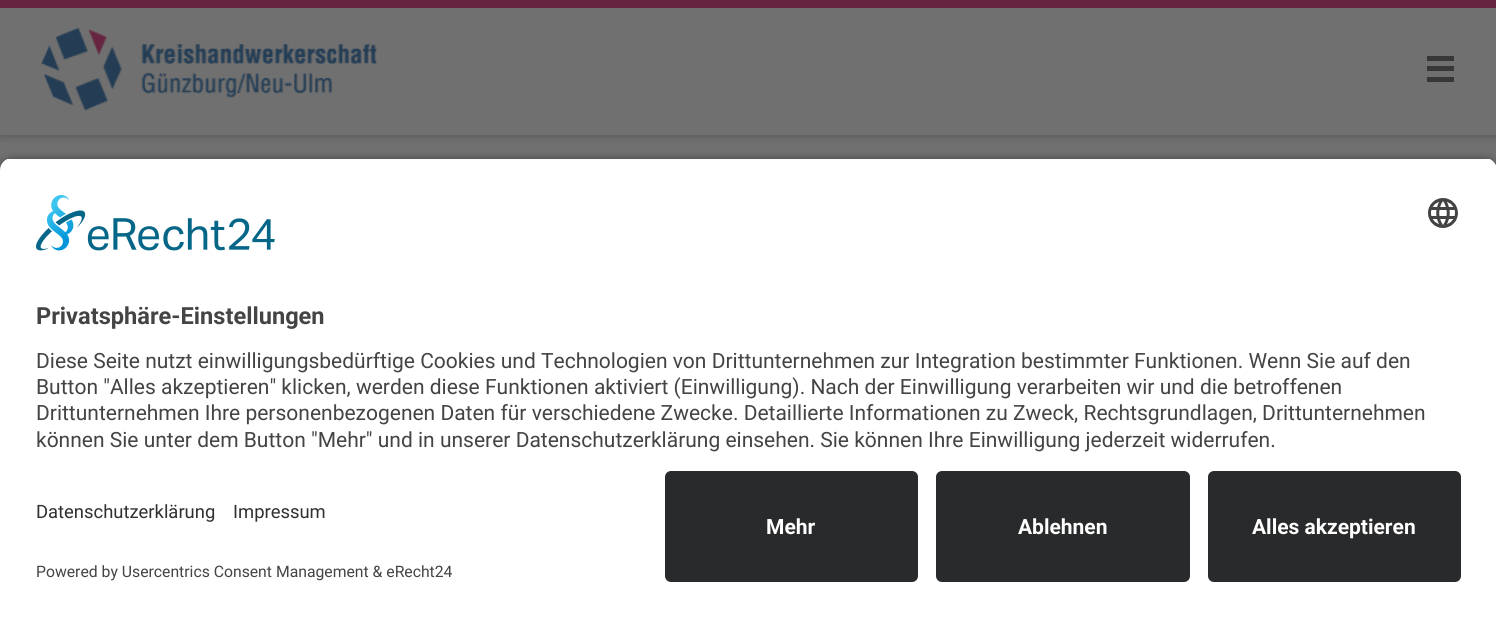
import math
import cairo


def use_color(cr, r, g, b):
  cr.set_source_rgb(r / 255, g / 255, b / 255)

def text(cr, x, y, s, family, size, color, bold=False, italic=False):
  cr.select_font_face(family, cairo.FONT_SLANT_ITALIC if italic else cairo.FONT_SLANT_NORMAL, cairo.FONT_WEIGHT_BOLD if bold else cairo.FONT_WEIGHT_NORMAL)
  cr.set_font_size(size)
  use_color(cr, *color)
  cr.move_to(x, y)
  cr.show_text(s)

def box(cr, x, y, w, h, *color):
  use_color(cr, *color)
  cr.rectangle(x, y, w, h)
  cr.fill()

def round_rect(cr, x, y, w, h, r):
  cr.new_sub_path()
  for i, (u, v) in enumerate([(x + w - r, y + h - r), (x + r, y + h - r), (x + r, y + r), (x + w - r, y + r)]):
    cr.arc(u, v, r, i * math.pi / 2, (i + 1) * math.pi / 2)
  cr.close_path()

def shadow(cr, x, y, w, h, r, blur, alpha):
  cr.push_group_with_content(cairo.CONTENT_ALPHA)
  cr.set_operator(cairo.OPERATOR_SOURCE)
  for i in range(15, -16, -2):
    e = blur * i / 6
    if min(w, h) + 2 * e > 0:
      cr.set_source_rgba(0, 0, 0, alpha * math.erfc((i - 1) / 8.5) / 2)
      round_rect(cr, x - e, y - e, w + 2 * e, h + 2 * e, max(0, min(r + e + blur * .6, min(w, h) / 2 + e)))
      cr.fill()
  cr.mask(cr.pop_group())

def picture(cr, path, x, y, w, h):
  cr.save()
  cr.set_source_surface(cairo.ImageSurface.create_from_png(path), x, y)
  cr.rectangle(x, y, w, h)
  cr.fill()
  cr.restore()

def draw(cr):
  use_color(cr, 112, 112, 112)
  cr.paint()
  cr.save()
  cr.rectangle(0, 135, 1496, 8)
  cr.clip()
  use_color(cr, 36, 36, 36)
  shadow(cr, 0, 2, 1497, 135, 0, 4, 0.3)
  cr.restore()
  picture(cr, "img_01.png", 41, 27, 337, 84)
  box(cr, 1427, 77, 27, 5, 55, 55, 55)
  box(cr, 1427, 66, 27, 5, 55, 55, 55)
  cr.rectangle(1428, 57, 25, 3)
  cr.stroke()
  box(cr, 1428, 58, 24, 1, 55, 55, 55)
  box(cr, 0, 0, 1496, 8, 102, 36, 65)
  use_color(cr, 0, 0, 0)
  shadow(cr, 0, 162, 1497, 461, 12, 5, 0.8)
  cr.save()
  cr.new_path()
  cr.move_to(12, 158)
  cr.line_to(1485, 158)
  cr.curve_to(1491.5, 158, 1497, 163.5, 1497, 170)
  cr.line_to(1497, 459)
  cr.line_to(0, 459)
  cr.line_to(0, 170)
  cr.curve_to(0, 163.5, 5.5, 158, 12, 158)
  cr.close_path()
  cr.clip()
  box(cr, 0, 159, 1496, 300, 255, 255, 255)
  cr.restore()
  picture(cr, "img_02.png", 36, 195, 239, 56)
  picture(cr, "img_03.png", 1428, 198, 30, 30)
  box(cr, 0, 459, 1496, 158, 255, 255, 255)
  use_color(cr, 41, 42, 43)
  round_rect(cr, 665, 471, 253, 111, 6)
  cr.fill()
  round_rect(cr, 936, 471, 254, 111, 6)
  cr.fill()
  round_rect(cr, 1208, 471, 253, 111, 6)
  cr.fill()
  text(cr, 36, 324, "Privatsphäre-Einstellungen", "Roboto", 23.6, (68, 68, 68), bold=True)
  text(cr, 36, 368, "Diese Seite nutzt einwilligungsbedürftige Cookies und Technologien von Drittunternehmen zur Integration bestimmter Funktionen. Wenn Sie auf den", "Roboto", 21, (68, 68, 68))
  text(cr, 36, 394, "Button \"Alles akzeptieren\" klicken, werden diese Funktionen aktiviert (Einwilligung). Nach der Einwilligung verarbeiten wir und die betroffenen", "Roboto", 21, (68, 68, 68))
  text(cr, 36, 420, "Drittunternehmen Ihre personenbezogenen Daten für verschiedene Zwecke. Detaillierte Informationen zu Zweck, Rechtsgrundlagen, Drittunternehmen", "Roboto", 21, (68, 68, 68))
  text(cr, 36, 447, "können Sie unter dem Button \"Mehr\" und in unserer Datenschutzerklärung einsehen. Sie können Ihre Einwilligung jederzeit widerrufen.", "Roboto", 21, (68, 68, 68))
  text(cr, 36, 518, "Datenschutzerklärung", "Roboto", 18.4, (48, 48, 48))
  text(cr, 233, 518, "Impressum", "Roboto", 18.4, (48, 48, 48))
  text(cr, 36, 577, "Powered by Usercentrics Consent Management & eRecht24", "Roboto", 15.75, (68, 68, 68))
  text(cr, 766, 534, "Mehr", "Roboto", 21, (255, 255, 255), bold=True)
  text(cr, 1018, 534, "Ablehnen", "Roboto", 21, (255, 255, 255), bold=True)
  text(cr, 1252, 534, "Alles akzeptieren", "Roboto", 21, (255, 255, 255), bold=True)


surface = cairo.ImageSurface(cairo.FORMAT_RGB24, 1496, 617)
cr = cairo.Context(surface)
options = cairo.FontOptions()
options.set_hint_metrics(cairo.HINT_METRICS_OFF)
options.set_hint_style(cairo.HINT_STYLE_NONE)
cr.set_font_options(options)
cr.set_miter_limit(4)
draw(cr)
surface.write_to_png("out.png")
